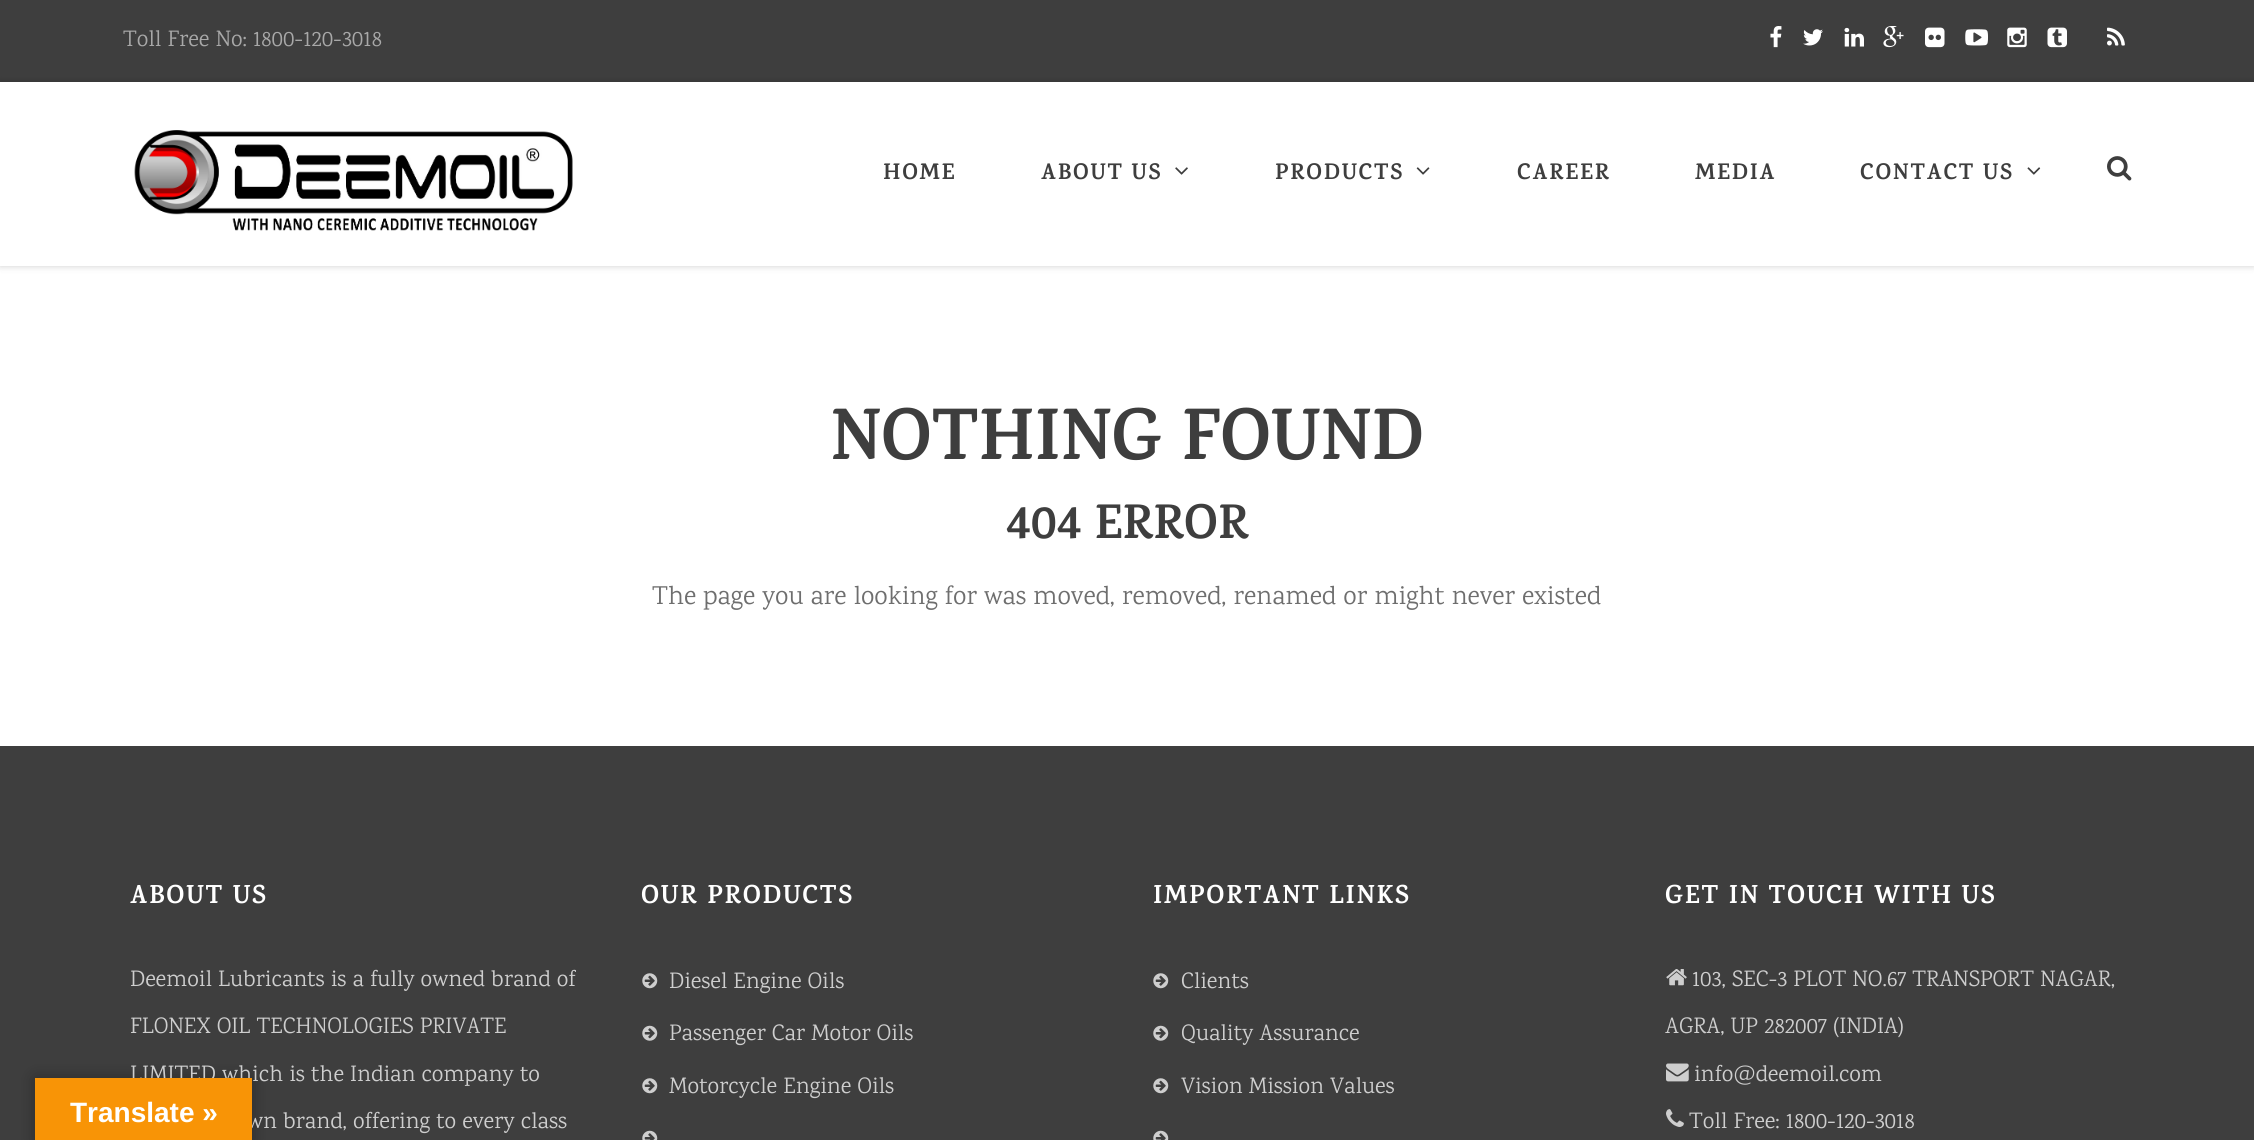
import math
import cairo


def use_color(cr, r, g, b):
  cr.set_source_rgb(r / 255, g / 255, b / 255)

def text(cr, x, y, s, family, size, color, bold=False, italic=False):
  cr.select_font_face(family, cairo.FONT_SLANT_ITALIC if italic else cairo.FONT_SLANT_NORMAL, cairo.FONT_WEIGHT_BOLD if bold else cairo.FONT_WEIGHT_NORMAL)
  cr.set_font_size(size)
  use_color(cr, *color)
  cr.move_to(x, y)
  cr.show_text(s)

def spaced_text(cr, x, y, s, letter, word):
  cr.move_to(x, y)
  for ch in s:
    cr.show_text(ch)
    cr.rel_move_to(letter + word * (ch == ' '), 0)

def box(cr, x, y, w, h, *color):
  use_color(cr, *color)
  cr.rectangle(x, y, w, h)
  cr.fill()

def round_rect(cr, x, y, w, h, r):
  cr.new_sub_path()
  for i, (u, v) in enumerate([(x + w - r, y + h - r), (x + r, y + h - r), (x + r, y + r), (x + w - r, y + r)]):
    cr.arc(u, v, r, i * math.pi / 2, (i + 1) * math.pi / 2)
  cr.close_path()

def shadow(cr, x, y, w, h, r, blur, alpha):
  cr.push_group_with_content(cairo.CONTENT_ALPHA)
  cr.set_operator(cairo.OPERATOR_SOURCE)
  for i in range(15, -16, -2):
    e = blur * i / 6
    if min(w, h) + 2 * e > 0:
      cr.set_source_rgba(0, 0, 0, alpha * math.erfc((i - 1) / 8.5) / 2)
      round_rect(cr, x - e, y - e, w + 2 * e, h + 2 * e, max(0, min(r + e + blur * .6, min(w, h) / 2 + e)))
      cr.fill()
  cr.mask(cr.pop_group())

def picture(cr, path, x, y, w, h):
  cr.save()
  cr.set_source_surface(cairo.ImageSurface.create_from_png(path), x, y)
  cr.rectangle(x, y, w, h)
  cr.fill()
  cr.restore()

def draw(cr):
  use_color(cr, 255, 255, 255)
  cr.paint()
  box(cr, 0, 0, 2254, 82, 62, 62, 62)
  picture(cr, "img_01.png", 1770, 26, 12, 22)
  picture(cr, "img_02.png", 1803, 29, 20, 17)
  picture(cr, "img_03.png", 1844, 27, 20, 20)
  picture(cr, "img_04.png", 1883, 26, 21, 22)
  picture(cr, "img_05.png", 1925, 27, 20, 21)
  picture(cr, "img_06.png", 1965, 29, 23, 17)
  picture(cr, "img_07.png", 2007, 27, 20, 21)
  picture(cr, "img_08.png", 2047, 27, 20, 21)
  picture(cr, "img_09.png", 2107, 27, 18, 19)
  use_color(cr, 0, 0, 0)
  shadow(cr, 0, 82, 2254, 184, 0, 3.5, 0.2)
  box(cr, 0, 82, 2254, 184, 255, 255, 255)
  picture(cr, "img_10.png", 134, 130, 439, 101)
  picture(cr, "img_11.png", 1175, 167, 13, 8)
  picture(cr, "img_12.png", 1416, 167, 14, 8)
  picture(cr, "img_13.png", 2027, 167, 14, 8)
  picture(cr, "img_14.png", 2107, 156, 25, 25)
  box(cr, 0, 746, 2254, 394, 62, 62, 62)
  picture(cr, "img_15.png", 642, 973, 16, 16)
  picture(cr, "img_16.png", 642, 1025, 16, 16)
  picture(cr, "img_15.png", 642, 1078, 16, 16)
  picture(cr, "img_17.png", 642, 1130, 16, 10)
  picture(cr, "img_15.png", 1153, 973, 16, 16)
  picture(cr, "img_16.png", 1153, 1025, 16, 16)
  picture(cr, "img_15.png", 1153, 1078, 16, 16)
  picture(cr, "img_17.png", 1153, 1130, 16, 10)
  picture(cr, "img_18.png", 1666, 969, 21, 17)
  picture(cr, "img_19.png", 1666, 1063, 23, 19)
  picture(cr, "img_20.png", 1666, 1109, 18, 18)
  use_color(cr, 0, 0, 0)
  shadow(cr, 35, 1078, 217, 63, 0, 8, 0.3)
  text(cr, 123, 46, "Toll Free No: 1800-120-3018", "Karma", 22.75, (168, 168, 168))
  cr.select_font_face("Karma", cairo.FONT_SLANT_NORMAL, cairo.FONT_WEIGHT_BOLD)
  use_color(cr, 62, 62, 62)
  spaced_text(cr, 883, 179, "HOME", 1.75, 0)
  spaced_text(cr, 1041, 179, "ABOUT US", 1.75, 0)
  spaced_text(cr, 1275, 179, "PRODUCTS", 1.75, 0)
  spaced_text(cr, 1517, 179, "CAREER", 1.75, 0)
  spaced_text(cr, 1695, 179, "MEDIA", 1.75, 0)
  spaced_text(cr, 1860, 179, "CONTACT US", 1.75, 0)
  text(cr, 830, 459, "NOTHING FOUND", "Karma", 73.5, (62, 62, 62), bold=True)
  text(cr, 1006, 538, "404 ERROR", "Karma", 49, (62, 62, 62), bold=True)
  text(cr, 652, 604, "The page you are looking for was moved, removed, renamed or might never existed", "Karma", 26.25, (110, 110, 110))
  cr.select_font_face("Karma", cairo.FONT_SLANT_NORMAL, cairo.FONT_WEIGHT_BOLD)
  use_color(cr, 255, 255, 255)
  spaced_text(cr, 130, 903, "ABOUT US", 1.75, 0)
  text(cr, 130, 986, "Deemoil Lubricants is a fully owned brand of", "Karma", 22.75, (206, 206, 206))
  text(cr, 130, 1033, "FLONEX OIL TECHNOLOGIES PRIVATE", "Karma", 22.75, (206, 206, 206))
  text(cr, 130, 1081, "LIMITED which is the Indian company to", "Karma", 22.75, (206, 206, 206))
  text(cr, 247, 1128, "wn brand, offering to every class", "Karma", 22.75, (206, 206, 206))
  cr.select_font_face("Karma", cairo.FONT_SLANT_NORMAL, cairo.FONT_WEIGHT_BOLD)
  cr.set_font_size(26.25)
  use_color(cr, 255, 255, 255)
  spaced_text(cr, 641, 903, "OUR PRODUCTS", 1.75, 0)
  text(cr, 669, 988, "Diesel Engine Oils", "Karma", 22.75, (206, 206, 206))
  text(cr, 669, 1040, "Passenger Car Motor Oils", "Karma", 22.75, (206, 206, 206))
  text(cr, 669, 1093, "Motorcycle Engine Oils", "Karma", 22.75, (206, 206, 206))
  cr.select_font_face("Karma", cairo.FONT_SLANT_NORMAL, cairo.FONT_WEIGHT_BOLD)
  cr.set_font_size(26.25)
  use_color(cr, 255, 255, 255)
  spaced_text(cr, 1153, 903, "IMPORTANT LINKS", 1.75, 0)
  text(cr, 1181, 988, "Clients", "Karma", 22.75, (206, 206, 206))
  text(cr, 1181, 1040, "Quality Assurance", "Karma", 22.75, (206, 206, 206))
  text(cr, 1181, 1093, "Vision Mission Values", "Karma", 22.75, (206, 206, 206))
  cr.select_font_face("Karma", cairo.FONT_SLANT_NORMAL, cairo.FONT_WEIGHT_BOLD)
  cr.set_font_size(26.25)
  use_color(cr, 255, 255, 255)
  spaced_text(cr, 1665, 903, "GET IN TOUCH WITH US", 1.75, 0)
  text(cr, 1692, 986, "103, SEC-3 PLOT NO.67 TRANSPORT NAGAR,", "Karma", 22.75, (206, 206, 206))
  text(cr, 1665, 1033, "AGRA, UP 282007 (INDIA)", "Karma", 22.75, (206, 206, 206))
  text(cr, 1694, 1081, "info@deemoil.com", "Karma", 22.75, (206, 206, 206))
  text(cr, 1689, 1128, "Toll Free: 1800-120-3018", "Karma", 22.75, (206, 206, 206))
  box(cr, 35, 1078, 217, 62, 248, 148, 6)
  text(cr, 70, 1122, "Translate »", "Liberation Sans", 28, (255, 255, 255), bold=True)


surface = cairo.ImageSurface(cairo.FORMAT_RGB24, 2254, 1140)
cr = cairo.Context(surface)
options = cairo.FontOptions()
options.set_hint_metrics(cairo.HINT_METRICS_OFF)
options.set_hint_style(cairo.HINT_STYLE_NONE)
cr.set_font_options(options)
cr.set_miter_limit(4)
draw(cr)
surface.write_to_png("out.png")
